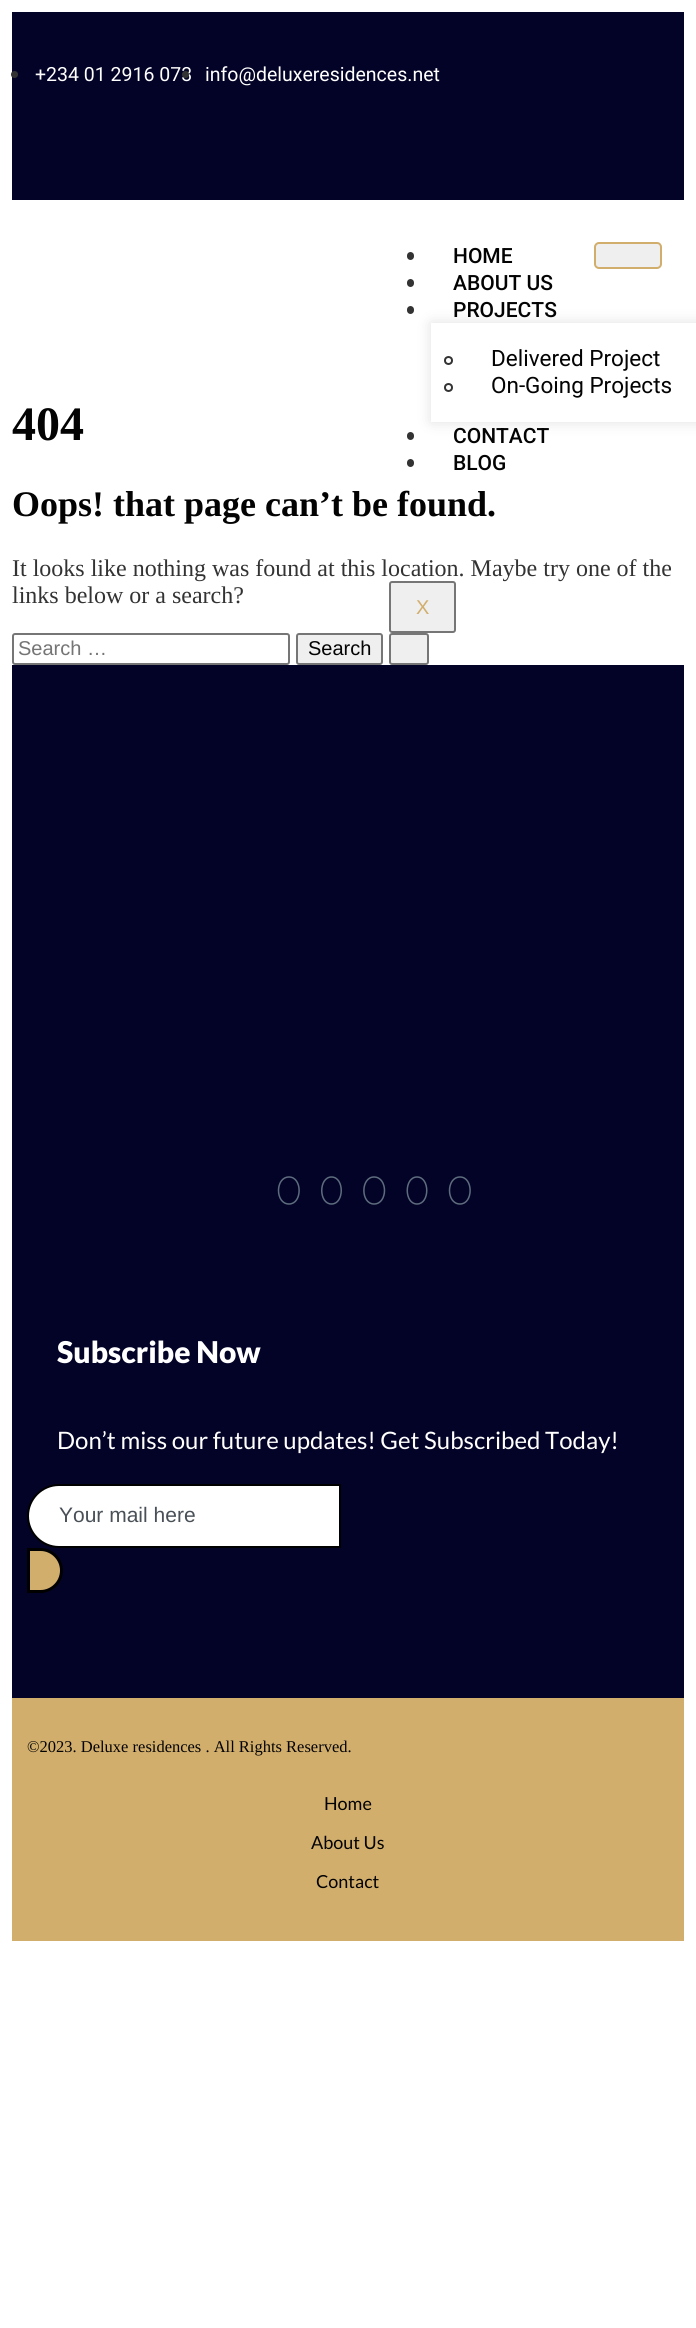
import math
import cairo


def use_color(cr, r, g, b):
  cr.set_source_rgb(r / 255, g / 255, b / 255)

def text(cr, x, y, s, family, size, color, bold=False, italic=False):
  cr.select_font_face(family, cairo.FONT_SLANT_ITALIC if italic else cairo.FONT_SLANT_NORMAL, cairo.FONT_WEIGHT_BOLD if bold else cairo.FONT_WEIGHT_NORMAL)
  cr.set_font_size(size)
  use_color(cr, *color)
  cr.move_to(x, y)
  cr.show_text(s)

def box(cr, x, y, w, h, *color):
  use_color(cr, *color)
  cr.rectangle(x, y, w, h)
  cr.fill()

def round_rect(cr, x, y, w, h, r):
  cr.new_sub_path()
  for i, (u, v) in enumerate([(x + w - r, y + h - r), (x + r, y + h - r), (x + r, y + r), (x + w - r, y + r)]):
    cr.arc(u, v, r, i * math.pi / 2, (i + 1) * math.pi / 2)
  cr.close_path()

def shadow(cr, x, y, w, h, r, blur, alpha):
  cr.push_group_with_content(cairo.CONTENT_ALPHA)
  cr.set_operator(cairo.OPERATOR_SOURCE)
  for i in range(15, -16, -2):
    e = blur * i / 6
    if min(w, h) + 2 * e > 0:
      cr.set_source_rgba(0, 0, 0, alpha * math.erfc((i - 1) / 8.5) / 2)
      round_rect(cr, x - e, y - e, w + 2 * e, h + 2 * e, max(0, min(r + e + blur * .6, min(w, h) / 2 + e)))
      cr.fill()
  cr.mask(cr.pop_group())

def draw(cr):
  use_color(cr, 255, 255, 255)
  cr.paint()
  box(cr, 12, 12, 672, 188, 3, 3, 39)
  use_color(cr, 51, 51, 51)
  cr.arc(14.5, 74.5, 3.5, 0, 2 * math.pi)
  cr.fill()
  use_color(cr, 239, 239, 239)
  round_rect(cr, 595, 243, 66, 25, 4)
  cr.fill_preserve()
  use_color(cr, 210, 174, 109)
  cr.stroke()
  use_color(cr, 51, 51, 51)
  round_rect(cr, 407, 252, 7, 8, 3.5)
  cr.fill()
  round_rect(cr, 407, 279, 7, 8, 3.5)
  cr.fill()
  cr.save()
  cr.set_fill_rule(cairo.FILL_RULE_EVEN_ODD)
  cr.new_path()
  cr.move_to(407, 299)
  cr.line_to(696, 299)
  cr.line_to(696, 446)
  cr.line_to(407, 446)
  cr.close_path()
  cr.move_to(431, 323)
  cr.line_to(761, 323)
  cr.line_to(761, 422)
  cr.line_to(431, 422)
  cr.close_path()
  cr.clip()
  use_color(cr, 0, 0, 0)
  shadow(cr, 431, 323, 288, 99, 0, 7.5, 0.12)
  cr.restore()
  round_rect(cr, 407, 306, 7, 8, 3.5)
  cr.fill()
  cr.arc(448.5, 360.5, 3.5, 0, 2 * math.pi)
  cr.stroke()
  cr.arc(448.5, 387.5, 3.5, 0, 2 * math.pi)
  cr.stroke()
  round_rect(cr, 407, 432, 7, 8, 3.5)
  cr.fill()
  round_rect(cr, 407, 459, 7, 8, 3.5)
  cr.fill()
  round_rect(cr, 13, 634, 276, 30, 2)
  use_color(cr, 118, 118, 118)
  cr.stroke()
  use_color(cr, 239, 239, 239)
  round_rect(cr, 297, 634, 85, 30, 2)
  cr.fill_preserve()
  use_color(cr, 118, 118, 118)
  cr.stroke()
  use_color(cr, 239, 239, 239)
  round_rect(cr, 390, 634, 38, 30, 2)
  cr.fill_preserve()
  use_color(cr, 118, 118, 118)
  cr.stroke()
  box(cr, 12, 665, 672, 1033, 3, 3, 39)
  cr.new_path()
  cr.move_to(289, 1177)
  cr.curve_to(302.5, 1177, 302.5, 1204, 289, 1204)
  cr.curve_to(275, 1204, 275, 1177, 289, 1177)
  cr.close_path()
  use_color(cr, 94, 109, 126)
  cr.set_line_width(1.5)
  cr.stroke()
  cr.new_path()
  cr.move_to(331.5, 1177)
  cr.curve_to(344.5, 1177, 344.5, 1204, 331.5, 1204)
  cr.curve_to(318.5, 1204, 318.5, 1177, 331.5, 1177)
  cr.close_path()
  cr.stroke()
  cr.new_path()
  cr.move_to(374, 1177)
  cr.curve_to(388, 1177, 388, 1204, 374, 1204)
  cr.curve_to(360.5, 1204, 360.5, 1177, 374, 1177)
  cr.close_path()
  cr.stroke()
  cr.new_path()
  cr.move_to(417, 1177)
  cr.curve_to(430, 1177, 430, 1204, 417, 1204)
  cr.curve_to(404, 1204, 404, 1177, 417, 1177)
  cr.close_path()
  cr.stroke()
  cr.new_path()
  cr.move_to(460, 1177)
  cr.curve_to(473.5, 1177, 473.5, 1204, 460, 1204)
  cr.curve_to(446, 1204, 446, 1177, 460, 1177)
  cr.close_path()
  cr.stroke()
  use_color(cr, 255, 255, 255)
  cr.new_path()
  cr.move_to(59, 1485)
  cr.line_to(340, 1485)
  cr.line_to(340, 1547)
  cr.line_to(59, 1547)
  cr.curve_to(42, 1547, 28, 1533, 28, 1516)
  cr.curve_to(28, 1499, 42, 1485, 59, 1485)
  cr.close_path()
  cr.fill_preserve()
  use_color(cr, 0, 0, 0)
  cr.set_line_width(2)
  cr.stroke()
  use_color(cr, 210, 174, 109)
  cr.new_path()
  cr.move_to(28.5, 1549.5)
  cr.line_to(40.5, 1549.5)
  cr.curve_to(52, 1549.5, 61.5, 1559, 61.5, 1570.5)
  cr.curve_to(61.5, 1582, 52, 1591.5, 40.5, 1591.5)
  cr.line_to(28.5, 1591.5)
  cr.close_path()
  cr.fill_preserve()
  use_color(cr, 0, 0, 0)
  cr.set_line_width(3)
  cr.stroke()
  box(cr, 12, 1698, 672, 243, 210, 174, 109)
  text(cr, 35, 81, "+234 01 2916 073", "Roboto", 19.5, (255, 255, 255))
  use_color(cr, 51, 51, 51)
  cr.new_path()
  cr.arc(185.5, 74.5, 3.5, 0, 2 * math.pi)
  cr.fill()
  text(cr, 205, 81, "info@deluxeresidences.net", "Roboto", 19.5, (255, 255, 255))
  text(cr, 453, 263, "HOME", "Roboto Medium", 21, (3, 3, 3))
  text(cr, 453, 290, "ABOUT US", "Roboto Medium", 21, (3, 3, 3))
  text(cr, 453, 317, "PROJECTS", "Roboto Medium", 21, (3, 3, 3))
  text(cr, 491, 366, "Delivered Project", "Roboto", 22.5, (3, 3, 3))
  text(cr, 491, 393, "On-Going Projects", "Roboto", 22.5, (3, 3, 3))
  text(cr, 453, 443, "CONTACT", "Roboto Medium", 21, (3, 3, 3))
  text(cr, 453, 470, "BLOG", "Roboto Medium", 21, (3, 3, 3))
  text(cr, 12, 440, "404", "Liberation Serif", 48, (3, 3, 3), bold=True)
  text(cr, 12, 516, "Oops! that page can’t be found.", "Liberation Serif", 36, (3, 3, 3), bold=True)
  text(cr, 12, 576, "It looks like nothing was found at this location. Maybe try one of the", "Liberation Serif", 24, (51, 51, 51))
  use_color(cr, 239, 239, 239)
  round_rect(cr, 390, 582, 65, 50, 2)
  cr.fill_preserve()
  use_color(cr, 118, 118, 118)
  cr.set_line_width(2)
  cr.stroke()
  text(cr, 416, 614, "X", "Liberation Sans", 20, (210, 174, 109))
  text(cr, 12, 603, "links below or a search?", "Liberation Serif", 24, (51, 51, 51))
  text(cr, 18, 655, "Search …", "Liberation Sans", 20, (117, 117, 117))
  text(cr, 308, 655, "Search", "Liberation Sans", 20, (3, 3, 3))
  text(cr, 57, 1363, "Subscribe Now", "Lato Black", 30, (255, 255, 255))
  text(cr, 57, 1449, "Don’t miss our future updates! Get Subscribed Today!", "Lato", 24, (255, 255, 255))
  text(cr, 59, 1522, "Your mail here", "Liberation Sans", 21, (73, 80, 87))
  text(cr, 27, 1752, "©2023. Deluxe residences . All Rights Reserved.", "Liberation Serif", 16.5, (3, 3, 3))
  text(cr, 324, 1810, "Home", "Lato", 18, (3, 3, 3))
  text(cr, 311, 1849, "About Us", "Lato", 18, (3, 3, 3))
  text(cr, 316, 1888, "Contact", "Lato", 18, (3, 3, 3))


surface = cairo.ImageSurface(cairo.FORMAT_RGB24, 696, 2328)
cr = cairo.Context(surface)
options = cairo.FontOptions()
options.set_hint_metrics(cairo.HINT_METRICS_OFF)
options.set_hint_style(cairo.HINT_STYLE_NONE)
cr.set_font_options(options)
cr.set_miter_limit(4)
draw(cr)
surface.write_to_png("out.png")
